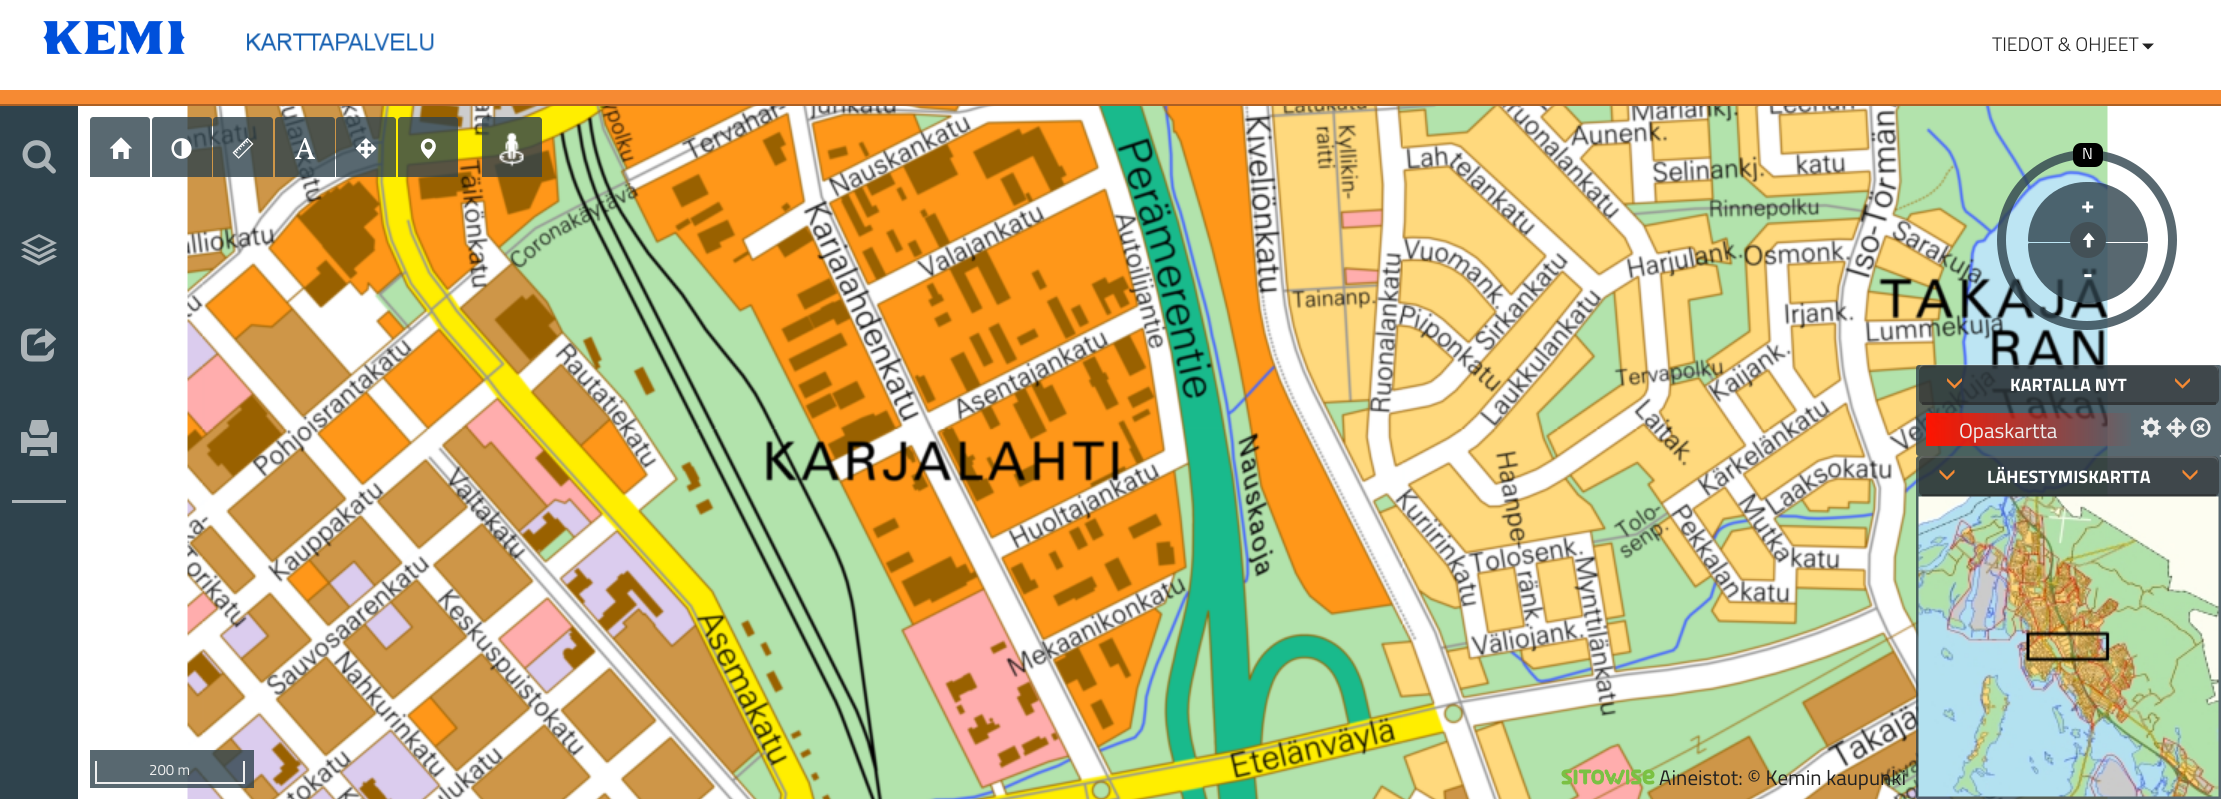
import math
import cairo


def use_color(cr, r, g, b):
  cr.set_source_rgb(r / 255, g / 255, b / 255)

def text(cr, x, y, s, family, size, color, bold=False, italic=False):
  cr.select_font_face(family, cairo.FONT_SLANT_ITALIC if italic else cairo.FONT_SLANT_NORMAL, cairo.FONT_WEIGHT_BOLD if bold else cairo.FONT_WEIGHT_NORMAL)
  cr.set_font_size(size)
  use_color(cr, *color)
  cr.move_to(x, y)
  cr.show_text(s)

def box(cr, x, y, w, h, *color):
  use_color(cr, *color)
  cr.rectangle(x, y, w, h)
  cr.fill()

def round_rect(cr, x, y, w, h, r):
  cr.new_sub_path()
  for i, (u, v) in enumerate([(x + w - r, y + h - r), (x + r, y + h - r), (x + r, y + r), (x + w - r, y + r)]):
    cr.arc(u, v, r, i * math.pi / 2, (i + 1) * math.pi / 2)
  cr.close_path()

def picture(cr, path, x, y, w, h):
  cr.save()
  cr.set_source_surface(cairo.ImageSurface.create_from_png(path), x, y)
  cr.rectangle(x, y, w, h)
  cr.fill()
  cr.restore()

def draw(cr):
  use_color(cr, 255, 255, 255)
  cr.paint()
  box(cr, 0, 90, 2221, 14, 246, 138, 51)
  box(cr, 0, 104, 2221, 2, 172, 96, 36)
  picture(cr, "img_01.png", 43, 21, 142, 33)
  picture(cr, "img_02.png", 247, 33, 187, 18)
  use_color(cr, 34, 34, 34)
  cr.new_path()
  cr.move_to(2142, 43.5)
  cr.line_to(2154, 43.5)
  cr.line_to(2148, 49.5)
  cr.close_path()
  cr.fill()
  box(cr, 0, 106, 78, 693, 47, 67, 77)
  picture(cr, "img_03.png", 22, 140, 34, 34)
  picture(cr, "img_04.png", 21, 234, 36, 32)
  picture(cr, "img_05.png", 21, 328, 35, 34)
  picture(cr, "img_06.png", 21, 420, 36, 36)
  box(cr, 12, 500, 54, 3, 172, 180, 184)
  picture(cr, "img_07.png", 187, 106, 1921, 693)
  use_color(cr, 89, 105, 113)
  cr.new_path()
  cr.move_to(93, 117)
  cr.line_to(147, 117)
  cr.curve_to(148.5, 117, 150, 118.5, 150, 120)
  cr.line_to(150, 177)
  cr.line_to(90, 177)
  cr.line_to(90, 120)
  cr.curve_to(90, 118.5, 91.5, 117, 93, 117)
  cr.close_path()
  cr.fill()
  picture(cr, "img_08.png", 109, 137, 23, 22)
  cr.set_source_rgba(0.184, 0.263, 0.302, 0.8)
  cr.new_path()
  cr.move_to(155, 117)
  cr.line_to(209, 117)
  cr.curve_to(210.5, 117, 212, 118.5, 212, 120)
  cr.line_to(212, 177)
  cr.line_to(152, 177)
  cr.line_to(152, 120)
  cr.curve_to(152, 118.5, 153.5, 117, 155, 117)
  cr.close_path()
  cr.fill()
  use_color(cr, 255, 255, 255)
  cr.new_path()
  cr.move_to(177.5, 139)
  cr.curve_to(190, 134, 197.5, 152.5, 185.5, 158)
  cr.curve_to(173, 163, 165.5, 144.5, 177.5, 139)
  cr.close_path()
  cr.move_to(181.5, 156)
  cr.line_to(181.5, 141)
  cr.curve_to(171.5, 141, 171.5, 156, 181.5, 156)
  cr.close_path()
  cr.fill()
  cr.set_source_rgba(0.184, 0.263, 0.302, 0.8)
  cr.new_path()
  cr.move_to(216, 117)
  cr.line_to(270, 117)
  cr.curve_to(271.5, 117, 273, 118.5, 273, 120)
  cr.line_to(273, 177)
  cr.line_to(213, 177)
  cr.line_to(213, 120)
  cr.curve_to(213, 118.5, 214.5, 117, 216, 117)
  cr.close_path()
  cr.fill()
  picture(cr, "img_09.png", 232, 137, 22, 22)
  cr.new_path()
  cr.move_to(278, 117)
  cr.line_to(332, 117)
  cr.curve_to(333.5, 117, 335, 118.5, 335, 120)
  cr.line_to(335, 177)
  cr.line_to(275, 177)
  cr.line_to(275, 120)
  cr.curve_to(275, 118.5, 276.5, 117, 278, 117)
  cr.close_path()
  cr.fill()
  picture(cr, "img_10.png", 294, 138, 21, 21)
  cr.new_path()
  cr.move_to(339, 117)
  cr.line_to(393, 117)
  cr.curve_to(394.5, 117, 396, 118.5, 396, 120)
  cr.line_to(396, 177)
  cr.line_to(336, 177)
  cr.line_to(336, 120)
  cr.curve_to(336, 118.5, 337.5, 117, 339, 117)
  cr.close_path()
  cr.fill()
  picture(cr, "img_11.png", 355, 138, 22, 21)
  cr.new_path()
  cr.move_to(401, 117)
  cr.line_to(455, 117)
  cr.curve_to(456.5, 117, 458, 118.5, 458, 120)
  cr.line_to(458, 177)
  cr.line_to(398, 177)
  cr.line_to(398, 120)
  cr.curve_to(398, 118.5, 399.5, 117, 401, 117)
  cr.close_path()
  cr.fill()
  picture(cr, "img_12.png", 420, 138, 16, 21)
  cr.new_path()
  cr.move_to(485, 117)
  cr.line_to(539, 117)
  cr.curve_to(540.5, 117, 542, 118.5, 542, 120)
  cr.line_to(542, 177)
  cr.line_to(482, 177)
  cr.line_to(482, 120)
  cr.curve_to(482, 118.5, 483.5, 117, 485, 117)
  cr.close_path()
  cr.fill()
  picture(cr, "img_13.png", 499, 132, 25, 35)
  cr.arc(2087, 240, 85.5, 0, 2 * math.pi)
  cr.set_line_width(9)
  cr.stroke()
  use_color(cr, 0, 0, 0)
  round_rect(cr, 2073, 143, 30, 24, 8)
  cr.fill()
  cr.set_source_rgba(0.184, 0.263, 0.302, 0.8)
  cr.new_path()
  cr.move_to(2086.5, 182)
  cr.line_to(2089.5, 182)
  cr.curve_to(2122, 182, 2148, 208, 2148, 240.5)
  cr.curve_to(2148, 241.5, 2147.5, 242, 2146.5, 242)
  cr.line_to(2029.5, 242)
  cr.curve_to(2028.5, 242, 2028, 241.5, 2028, 240.5)
  cr.curve_to(2028, 208, 2054, 182, 2086.5, 182)
  cr.close_path()
  cr.fill()
  cr.new_path()
  cr.move_to(2029.5, 243)
  cr.line_to(2146.5, 243)
  cr.curve_to(2147.5, 243, 2148, 243.5, 2148, 244.5)
  cr.curve_to(2148, 277, 2122, 303, 2089.5, 303)
  cr.line_to(2086.5, 303)
  cr.curve_to(2054, 303, 2028, 277, 2028, 244.5)
  cr.curve_to(2028, 243.5, 2028.5, 243, 2029.5, 243)
  cr.close_path()
  cr.fill()
  use_color(cr, 67, 80, 86)
  cr.arc(2088, 240, 18, 0, 2 * math.pi)
  cr.fill()
  picture(cr, "img_14.png", 2082, 232, 13, 16)
  cr.set_source_rgba(0.184, 0.263, 0.302, 0.8)
  round_rect(cr, 1916, 365, 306, 91, 3)
  cr.fill()
  cr.set_source_rgba(0.153, 0.153, 0.153, 0.5)
  round_rect(cr, 1919, 365, 300, 40, 6)
  cr.fill()
  cr.set_source_rgba(1, 1, 1, 0.15)
  cr.new_path()
  cr.move_to(1924, 366)
  cr.line_to(2212, 366)
  cr.curve_to(2220, 366, 2218, 376, 2218, 381)
  cr.line_to(2218, 400)
  cr.line_to(2218, 399)
  cr.line_to(2218, 370)
  cr.curve_to(2218, 367, 2216, 364, 2212, 364)
  cr.line_to(1924, 364)
  cr.curve_to(1921, 364, 1919, 367, 1919, 370)
  cr.curve_to(1920, 368, 1922, 366, 1924, 366)
  cr.close_path()
  cr.fill()
  cr.set_source_rgba(0.153, 0.153, 0.153, 0.5)
  cr.rectangle(1922, 402, 294, 3)
  cr.fill()
  picture(cr, "img_15.png", 1947, 378, 15, 11)
  picture(cr, "img_16.png", 2175, 378, 15, 11)
  gradient = cairo.LinearGradient(2136, 429, 1926, 429)
  gradient.add_color_stop_rgba(0, 1, 0.078, 0, 0)
  gradient.add_color_stop_rgba(1, 1, 0.078, 0, 1)
  cr.set_source(gradient)
  cr.rectangle(1926, 413, 205, 33)
  cr.fill()
  picture(cr, "img_17.png", 2140, 417, 22, 21)
  picture(cr, "img_18.png", 2166, 417, 21, 21)
  picture(cr, "img_19.png", 2190, 417, 21, 21)
  cr.set_source_rgba(0.184, 0.263, 0.302, 0.8)
  round_rect(cr, 1916, 456, 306, 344, 3)
  cr.fill()
  cr.set_source_rgba(0.153, 0.153, 0.153, 0.5)
  round_rect(cr, 1919, 456, 300, 41, 6)
  cr.fill()
  cr.set_source_rgba(1, 1, 1, 0.15)
  cr.new_path()
  cr.move_to(1924, 458)
  cr.line_to(2212, 458)
  cr.curve_to(2216, 458, 2218, 460, 2218, 464)
  cr.line_to(2218, 492)
  cr.line_to(2218, 490)
  cr.line_to(2218, 462)
  cr.curve_to(2218, 459, 2216, 456, 2212, 456)
  cr.line_to(1924, 456)
  cr.curve_to(1921, 456, 1919, 458, 1919, 461)
  cr.curve_to(1920, 459, 1922, 458, 1924, 458)
  cr.close_path()
  cr.fill()
  cr.set_source_rgba(0.153, 0.153, 0.153, 0.5)
  cr.rectangle(1922, 494, 294, 3)
  cr.fill()
  picture(cr, "img_20.png", 1939, 469, 16, 11)
  picture(cr, "img_21.png", 2182, 469, 16, 11)
  picture(cr, "img_22.png", 1918, 496, 301, 301)
  cr.set_source_rgba(0.184, 0.263, 0.302, 0.8)
  cr.rectangle(90, 750, 164, 38)
  cr.fill()
  box(cr, 243, 761, 2, 22, 238, 238, 238)
  box(cr, 95, 782, 150, 2, 238, 238, 238)
  box(cr, 95, 761, 2, 22, 238, 238, 238)
  picture(cr, "img_23.png", 1561, 769, 94, 16)
  text(cr, 1992, 51, "TIEDOT & OHJEET", "Titillium Web Light", 19.5, (34, 34, 34))
  text(cr, 2082, 159, "N", "Titillium Web", 16, (255, 255, 255))
  text(cr, 2081, 213, "+", "Titillium Web", 24, (255, 255, 255), bold=True)
  text(cr, 2083, 282, "-", "Titillium Web", 24, (255, 255, 255), bold=True)
  text(cr, 2010, 391, "KARTALLA NYT", "Titillium Web", 18, (255, 255, 255), bold=True)
  text(cr, 1959, 438, "Opaskartta", "Titillium Web", 21, (238, 238, 238))
  text(cr, 1987, 483, "LÄHESTYMISKARTTA", "Titillium Web", 18, (255, 255, 255), bold=True)
  text(cr, 149, 775, "200 m", "Titillium Web", 15, (238, 238, 238))
  text(cr, 1659, 785, "Aineistot: © Kemin kaupunki", "Titillium Web", 21, (34, 34, 34))


surface = cairo.ImageSurface(cairo.FORMAT_RGB24, 2221, 799)
cr = cairo.Context(surface)
options = cairo.FontOptions()
options.set_hint_metrics(cairo.HINT_METRICS_OFF)
options.set_hint_style(cairo.HINT_STYLE_NONE)
cr.set_font_options(options)
cr.set_miter_limit(4)
draw(cr)
surface.write_to_png("out.png")
